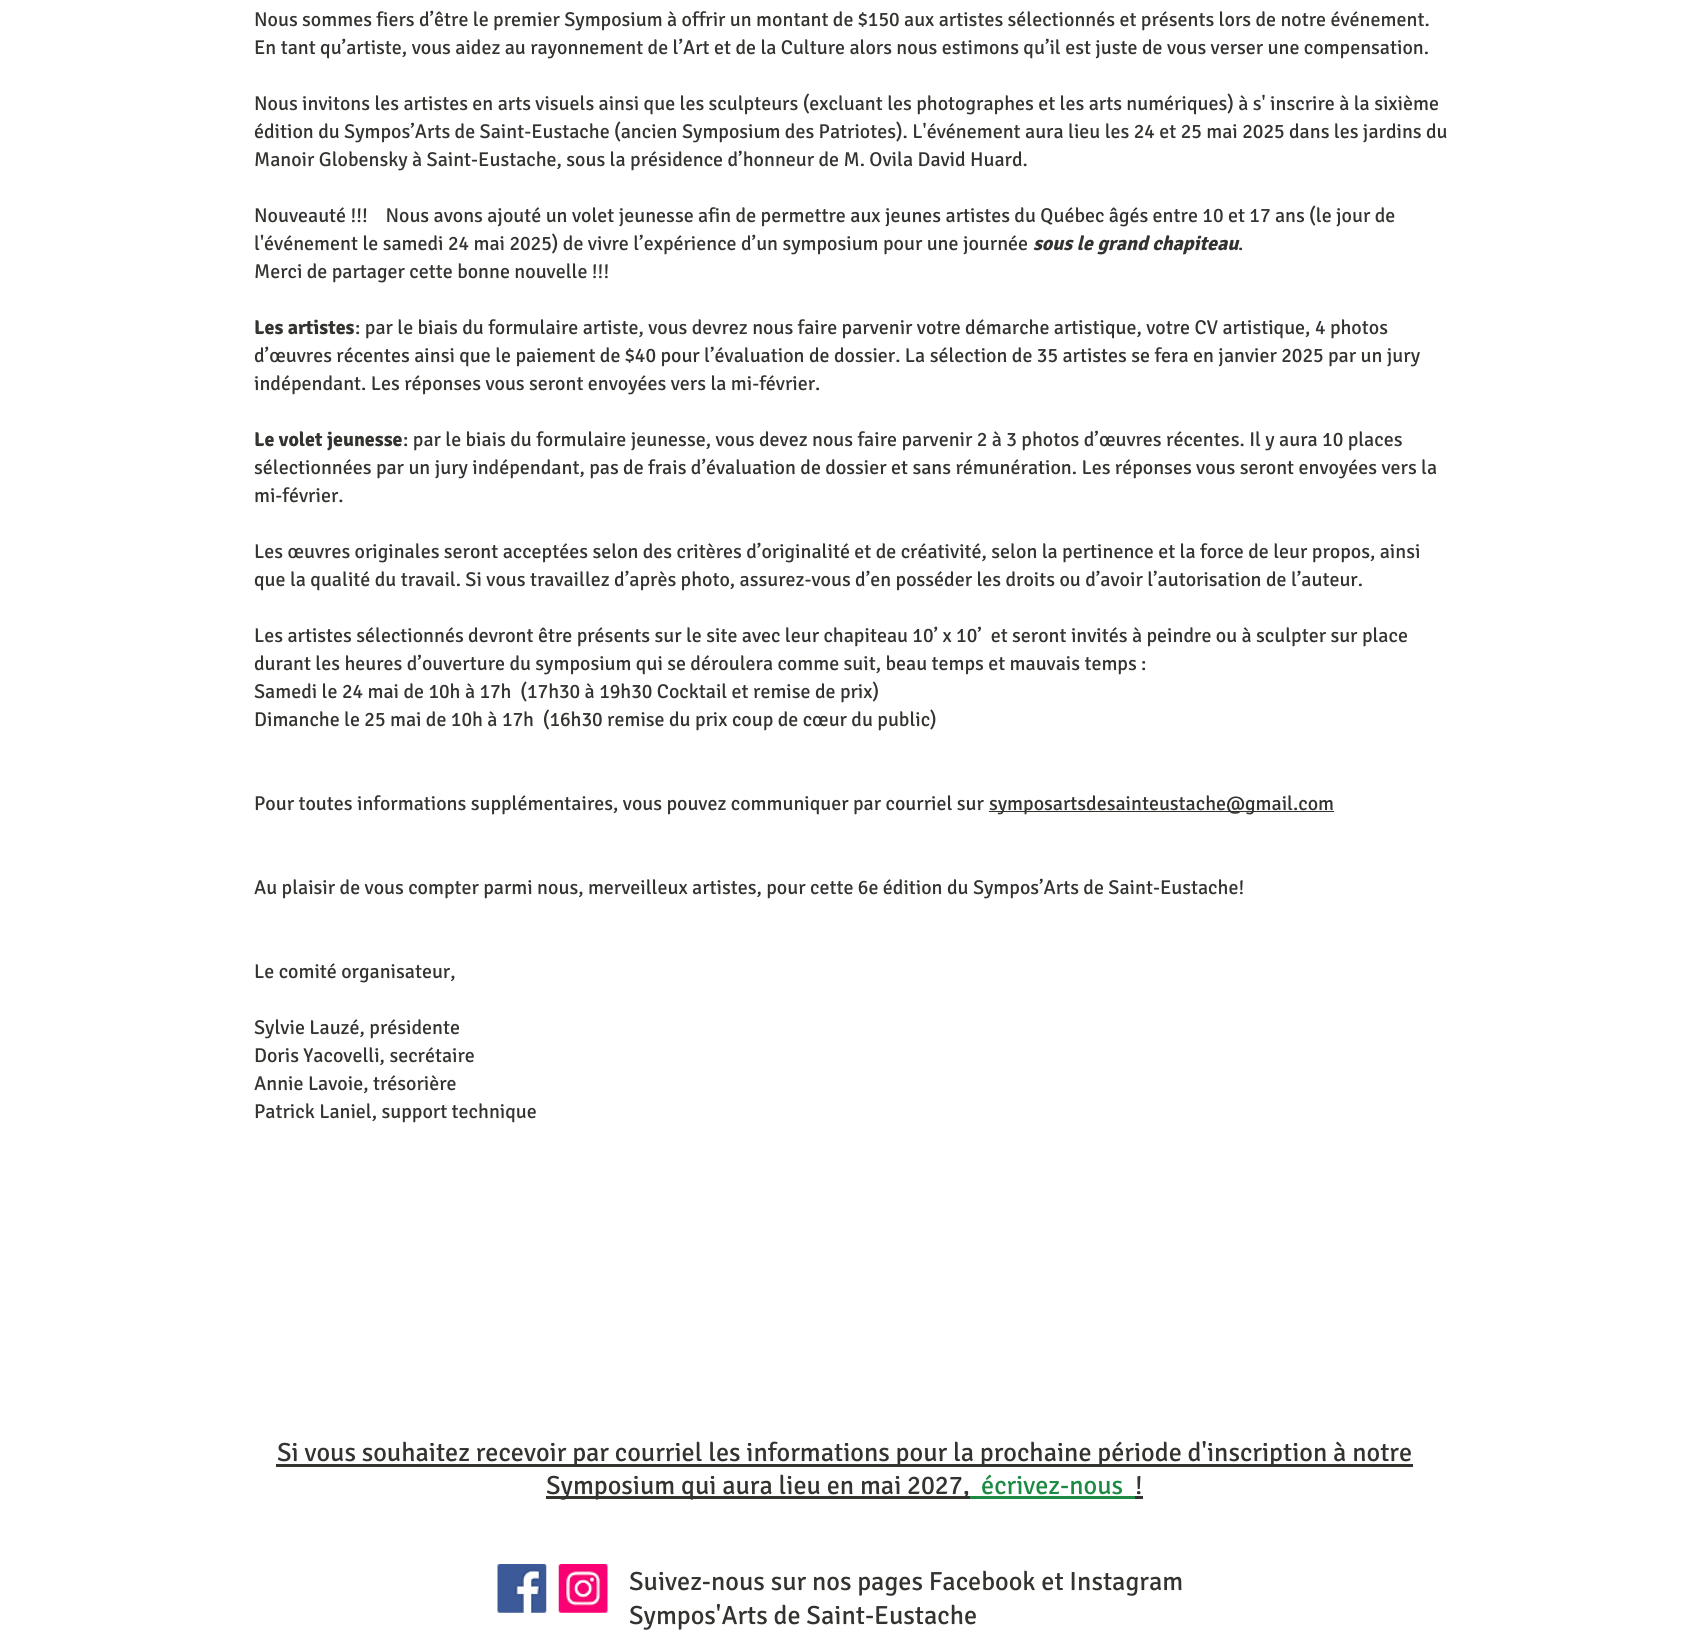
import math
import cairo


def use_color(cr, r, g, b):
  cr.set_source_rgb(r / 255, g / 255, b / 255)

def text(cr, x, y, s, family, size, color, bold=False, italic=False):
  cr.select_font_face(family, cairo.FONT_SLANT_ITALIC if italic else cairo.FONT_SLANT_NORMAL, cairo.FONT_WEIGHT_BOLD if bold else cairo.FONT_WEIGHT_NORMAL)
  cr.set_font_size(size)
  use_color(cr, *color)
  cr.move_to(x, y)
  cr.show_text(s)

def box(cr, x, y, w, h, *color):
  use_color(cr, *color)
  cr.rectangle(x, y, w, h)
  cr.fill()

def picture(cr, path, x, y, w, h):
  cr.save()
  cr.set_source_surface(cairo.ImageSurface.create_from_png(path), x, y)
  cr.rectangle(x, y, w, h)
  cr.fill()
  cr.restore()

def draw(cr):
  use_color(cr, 255, 255, 255)
  cr.paint()
  box(cr, 989, 811, 345, 1, 51, 51, 48)
  box(cr, 276, 1464, 1137, 3, 51, 51, 48)
  box(cr, 546, 1496, 424, 3, 51, 51, 48)
  box(cr, 970, 1496, 165, 3, 28, 138, 67)
  box(cr, 1135, 1496, 8, 3, 51, 51, 48)
  picture(cr, "img_01.png", 497, 1564, 50, 49)
  picture(cr, "img_02.png", 558, 1564, 50, 49)
  text(cr, 254, 26, "Nous sommes fiers d’être le premier Symposium à offrir un montant de $150 aux artistes sélectionnés et présents lors de notre événement.", "Signika", 20, (51, 51, 48))
  text(cr, 254, 54, "En tant qu’artiste, vous aidez au rayonnement de l’Art et de la Culture alors nous estimons qu’il est juste de vous verser une compensation.", "Signika", 20, (51, 51, 48))
  text(cr, 254, 110, "Nous invitons les artistes en arts visuels ainsi que les sculpteurs (excluant les photographes et les arts numériques) à s' inscrire à la sixième", "Signika", 20, (51, 51, 48))
  text(cr, 254, 138, "édition du Sympos’Arts de Saint-Eustache (ancien Symposium des Patriotes). L'événement aura lieu les 24 et 25 mai 2025 dans les jardins du", "Signika", 20, (51, 51, 48))
  text(cr, 254, 166, "Manoir Globensky à Saint-Eustache, sous la présidence d’honneur de M. Ovila David Huard.", "Signika", 20, (51, 51, 48))
  text(cr, 254, 222, "Nouveauté !!!    Nous avons ajouté un volet jeunesse afin de permettre aux jeunes artistes du Québec âgés entre 10 et 17 ans (le jour de", "Signika", 20, (51, 51, 48))
  text(cr, 254, 250, "l'événement le samedi 24 mai 2025) de vivre l’expérience d’un symposium pour une journée", "Signika", 20, (51, 51, 48))
  text(cr, 1033, 250, "sous le grand chapiteau", "Signika", 20, (51, 51, 48), bold=True, italic=True)
  text(cr, 1238, 250, ".", "Signika", 20, (51, 51, 48))
  text(cr, 254, 278, "Merci de partager cette bonne nouvelle !!!", "Signika", 20, (51, 51, 48))
  text(cr, 254, 334, "Les artistes", "Signika", 20, (51, 51, 48), bold=True)
  text(cr, 355, 334, ": par le biais du formulaire artiste, vous devrez nous faire parvenir votre démarche artistique, votre CV artistique, 4 photos", "Signika", 20, (51, 51, 48))
  text(cr, 254, 362, "d’œuvres récentes ainsi que le paiement de $40 pour l’évaluation de dossier. La sélection de 35 artistes se fera en janvier 2025 par un jury", "Signika", 20, (51, 51, 48))
  text(cr, 254, 390, "indépendant. Les réponses vous seront envoyées vers la mi-février.", "Signika", 20, (51, 51, 48))
  text(cr, 254, 446, "Le volet jeunesse", "Signika", 20, (51, 51, 48), bold=True)
  text(cr, 403, 446, ": par le biais du formulaire jeunesse, vous devez nous faire parvenir 2 à 3 photos d’œuvres récentes. Il y aura 10 places", "Signika", 20, (51, 51, 48))
  text(cr, 254, 474, "sélectionnées par un jury indépendant, pas de frais d’évaluation de dossier et sans rémunération. Les réponses vous seront envoyées vers la", "Signika", 20, (51, 51, 48))
  text(cr, 254, 502, "mi-février.", "Signika", 20, (51, 51, 48))
  text(cr, 254, 558, "Les œuvres originales seront acceptées selon des critères d’originalité et de créativité, selon la pertinence et la force de leur propos, ainsi", "Signika", 20, (51, 51, 48))
  text(cr, 254, 586, "que la qualité du travail. Si vous travaillez d’après photo, assurez-vous d’en posséder les droits ou d’avoir l’autorisation de l’auteur.", "Signika", 20, (51, 51, 48))
  text(cr, 254, 642, "Les artistes sélectionnés devront être présents sur le site avec leur chapiteau 10’ x 10’  et seront invités à peindre ou à sculpter sur place", "Signika", 20, (51, 51, 48))
  text(cr, 254, 670, "durant les heures d’ouverture du symposium qui se déroulera comme suit, beau temps et mauvais temps :", "Signika", 20, (51, 51, 48))
  text(cr, 254, 698, "Samedi le 24 mai de 10h à 17h  (17h30 à 19h30 Cocktail et remise de prix)", "Signika", 20, (51, 51, 48))
  text(cr, 254, 726, "Dimanche le 25 mai de 10h à 17h  (16h30 remise du prix coup de cœur du public)", "Signika", 20, (51, 51, 48))
  text(cr, 254, 810, "Pour toutes informations supplémentaires, vous pouvez communiquer par courriel sur", "Signika", 20, (51, 51, 48))
  text(cr, 989, 810, "symposartsdesainteustache@gmail.com", "Signika", 20, (51, 51, 48))
  text(cr, 254, 894, "Au plaisir de vous compter parmi nous, merveilleux artistes, pour cette 6e édition du Sympos’Arts de Saint-Eustache!", "Signika", 20, (51, 51, 48))
  text(cr, 254, 978, "Le comité organisateur,", "Signika", 20, (51, 51, 48))
  text(cr, 254, 1034, "Sylvie Lauzé, présidente", "Signika", 20, (51, 51, 48))
  text(cr, 254, 1062, "Doris Yacovelli, secrétaire", "Signika", 20, (51, 51, 48))
  text(cr, 254, 1090, "Annie Lavoie, trésorière", "Signika", 20, (51, 51, 48))
  text(cr, 254, 1118, "Patrick Laniel, support technique", "Signika", 20, (51, 51, 48))
  text(cr, 277, 1461, "Si vous souhaitez recevoir par courriel les informations pour la prochaine période d'inscription à notre", "Signika", 26.25, (51, 51, 48))
  text(cr, 546, 1494, "Symposium qui aura lieu en mai 2027,", "Signika", 26.25, (51, 51, 48))
  text(cr, 981, 1494, "écrivez-nous", "Signika", 26.25, (28, 138, 67))
  text(cr, 1135, 1494, "!", "Signika", 26.25, (51, 51, 48))
  text(cr, 629, 1590, "Suivez-nous sur nos pages Facebook et Instagram", "Signika", 26.25, (51, 51, 48))
  text(cr, 629, 1624, "Sympos'Arts de Saint-Eustache", "Signika", 26.25, (51, 51, 48))


surface = cairo.ImageSurface(cairo.FORMAT_RGB24, 1703, 1643)
cr = cairo.Context(surface)
options = cairo.FontOptions()
options.set_hint_metrics(cairo.HINT_METRICS_OFF)
options.set_hint_style(cairo.HINT_STYLE_NONE)
cr.set_font_options(options)
cr.set_miter_limit(4)
draw(cr)
surface.write_to_png("out.png")
